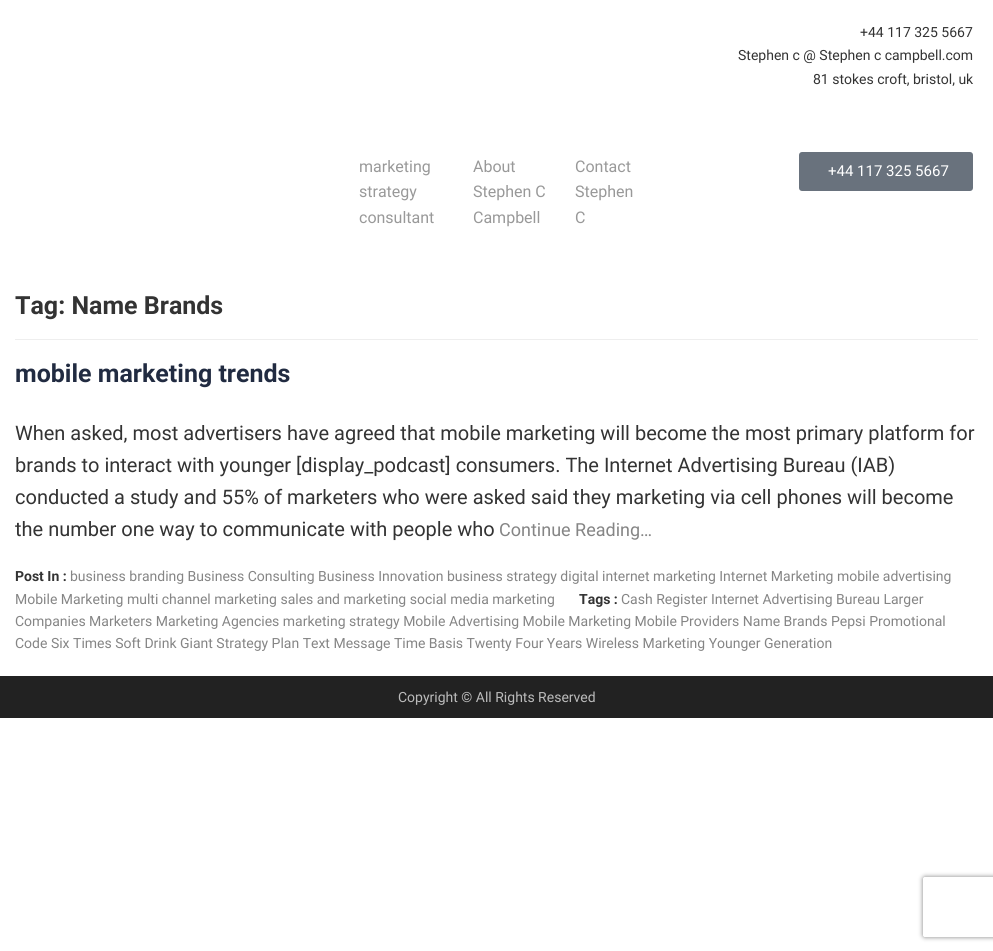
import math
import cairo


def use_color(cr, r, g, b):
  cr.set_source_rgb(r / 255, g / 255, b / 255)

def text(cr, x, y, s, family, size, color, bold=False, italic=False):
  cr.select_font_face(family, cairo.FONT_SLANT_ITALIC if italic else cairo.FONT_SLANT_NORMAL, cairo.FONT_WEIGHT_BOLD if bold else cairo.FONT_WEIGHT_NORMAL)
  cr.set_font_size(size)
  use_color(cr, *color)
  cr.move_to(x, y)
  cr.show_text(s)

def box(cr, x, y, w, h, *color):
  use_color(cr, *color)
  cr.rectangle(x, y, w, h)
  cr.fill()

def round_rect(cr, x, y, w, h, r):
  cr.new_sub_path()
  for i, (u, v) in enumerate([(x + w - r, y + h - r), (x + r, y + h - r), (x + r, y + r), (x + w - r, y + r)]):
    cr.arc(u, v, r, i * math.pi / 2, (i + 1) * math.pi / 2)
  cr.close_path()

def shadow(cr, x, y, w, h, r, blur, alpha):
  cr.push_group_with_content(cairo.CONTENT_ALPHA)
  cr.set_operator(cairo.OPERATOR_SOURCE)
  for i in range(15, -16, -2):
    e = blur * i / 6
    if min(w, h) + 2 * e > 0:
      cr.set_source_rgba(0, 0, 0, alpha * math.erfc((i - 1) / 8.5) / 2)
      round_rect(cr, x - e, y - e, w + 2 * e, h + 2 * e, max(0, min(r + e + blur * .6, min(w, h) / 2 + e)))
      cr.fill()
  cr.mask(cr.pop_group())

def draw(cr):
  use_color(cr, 255, 255, 255)
  cr.paint()
  use_color(cr, 105, 114, 125)
  round_rect(cr, 799, 152, 174, 39, 3)
  cr.fill()
  box(cr, 15, 339, 963, 1, 238, 238, 238)
  box(cr, 0, 676, 993, 42, 34, 34, 34)
  cr.save()
  cr.set_fill_rule(cairo.FILL_RULE_EVEN_ODD)
  cr.new_path()
  cr.move_to(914, 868)
  cr.line_to(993, 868)
  cr.line_to(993, 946)
  cr.line_to(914, 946)
  cr.close_path()
  cr.move_to(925, 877)
  cr.line_to(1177, 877)
  cr.curve_to(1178, 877, 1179, 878, 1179, 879)
  cr.line_to(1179, 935)
  cr.curve_to(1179, 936, 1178, 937, 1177, 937)
  cr.line_to(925, 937)
  cr.curve_to(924, 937, 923, 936, 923, 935)
  cr.line_to(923, 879)
  cr.curve_to(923, 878, 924, 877, 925, 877)
  cr.close_path()
  cr.clip()
  use_color(cr, 128, 128, 128)
  shadow(cr, 923, 877, 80, 60, 2, 2.5, 1)
  cr.restore()
  text(cr, 860, 37, "+44 117 325 5667", "Roboto", 14, (51, 51, 51))
  text(cr, 738, 60, "Stephen c @ Stephen c campbell.com", "Roboto", 14, (51, 51, 51))
  text(cr, 813, 84, "81 stokes croft, bristol, uk", "Roboto", 14, (51, 51, 51))
  text(cr, 359, 172, "marketing", "Roboto", 16, (153, 153, 153))
  text(cr, 359, 197, "strategy", "Roboto", 16, (153, 153, 153))
  text(cr, 359, 223, "consultant", "Roboto", 16, (153, 153, 153))
  text(cr, 473, 172, "About", "Roboto", 16, (153, 153, 153))
  text(cr, 473, 197, "Stephen C", "Roboto", 16, (153, 153, 153))
  text(cr, 473, 223, "Campbell", "Roboto", 16, (153, 153, 153))
  text(cr, 575, 172, "Contact", "Roboto", 16, (153, 153, 153))
  text(cr, 575, 197, "Stephen", "Roboto", 16, (153, 153, 153))
  text(cr, 575, 223, "C", "Roboto", 16, (153, 153, 153))
  text(cr, 828, 176, "+44 117 325 5667", "Roboto", 15, (255, 255, 255))
  text(cr, 15, 314, "Tag: Name Brands", "Roboto", 25, (51, 51, 51), bold=True)
  text(cr, 15, 382, "mobile marketing trends", "Roboto", 25, (33, 43, 65), bold=True)
  text(cr, 15, 440, "When asked, most advertisers have agreed that mobile marketing will become the most primary platform for", "Roboto", 20, (51, 51, 51))
  text(cr, 15, 472, "brands to interact with younger [display_podcast] consumers. The Internet Advertising Bureau (IAB)", "Roboto", 20, (51, 51, 51))
  text(cr, 15, 504, "conducted a study and 55% of marketers who were asked said they marketing via cell phones will become", "Roboto", 20, (51, 51, 51))
  text(cr, 15, 536, "the number one way to communicate with people who", "Roboto", 20, (51, 51, 51))
  text(cr, 499, 536, "Continue Reading…", "Roboto", 18, (133, 133, 133))
  text(cr, 15, 581, "Post In :", "Roboto", 14, (51, 51, 51), bold=True)
  text(cr, 70, 581, "business branding Business Consulting Business Innovation business strategy digital internet marketing Internet Marketing mobile advertising", "Roboto", 14, (133, 133, 133))
  text(cr, 15, 604, "Mobile Marketing multi channel marketing sales and marketing social media marketing", "Roboto", 14, (133, 133, 133))
  text(cr, 579, 604, "Tags :", "Roboto", 14, (51, 51, 51), bold=True)
  text(cr, 621, 604, "Cash Register Internet Advertising Bureau Larger", "Roboto", 14, (133, 133, 133))
  text(cr, 15, 626, "Companies Marketers Marketing Agencies marketing strategy Mobile Advertising Mobile Marketing Mobile Providers Name Brands Pepsi Promotional", "Roboto", 14, (133, 133, 133))
  text(cr, 15, 648, "Code Six Times Soft Drink Giant Strategy Plan Text Message Time Basis Twenty Four Years Wireless Marketing Younger Generation", "Roboto", 14, (133, 133, 133))
  text(cr, 398, 702, "Copyright © All Rights Reserved", "Roboto", 14, (187, 187, 187))


surface = cairo.ImageSurface(cairo.FORMAT_RGB24, 993, 951)
cr = cairo.Context(surface)
options = cairo.FontOptions()
options.set_hint_metrics(cairo.HINT_METRICS_OFF)
options.set_hint_style(cairo.HINT_STYLE_NONE)
cr.set_font_options(options)
cr.set_miter_limit(4)
draw(cr)
surface.write_to_png("out.png")
